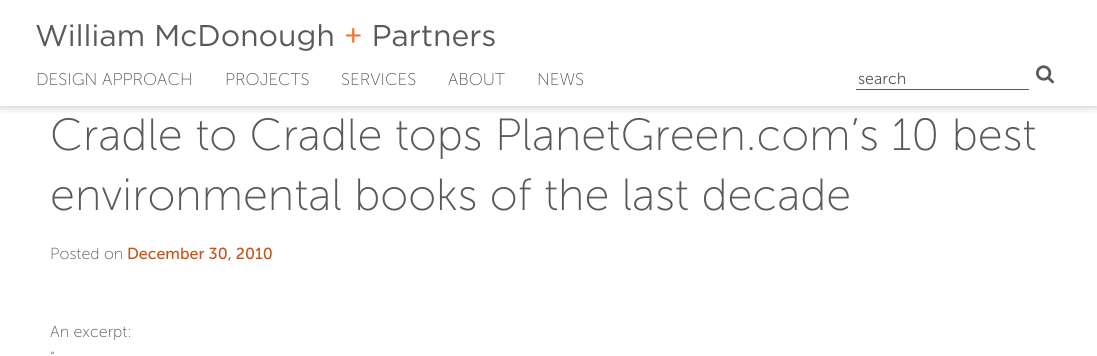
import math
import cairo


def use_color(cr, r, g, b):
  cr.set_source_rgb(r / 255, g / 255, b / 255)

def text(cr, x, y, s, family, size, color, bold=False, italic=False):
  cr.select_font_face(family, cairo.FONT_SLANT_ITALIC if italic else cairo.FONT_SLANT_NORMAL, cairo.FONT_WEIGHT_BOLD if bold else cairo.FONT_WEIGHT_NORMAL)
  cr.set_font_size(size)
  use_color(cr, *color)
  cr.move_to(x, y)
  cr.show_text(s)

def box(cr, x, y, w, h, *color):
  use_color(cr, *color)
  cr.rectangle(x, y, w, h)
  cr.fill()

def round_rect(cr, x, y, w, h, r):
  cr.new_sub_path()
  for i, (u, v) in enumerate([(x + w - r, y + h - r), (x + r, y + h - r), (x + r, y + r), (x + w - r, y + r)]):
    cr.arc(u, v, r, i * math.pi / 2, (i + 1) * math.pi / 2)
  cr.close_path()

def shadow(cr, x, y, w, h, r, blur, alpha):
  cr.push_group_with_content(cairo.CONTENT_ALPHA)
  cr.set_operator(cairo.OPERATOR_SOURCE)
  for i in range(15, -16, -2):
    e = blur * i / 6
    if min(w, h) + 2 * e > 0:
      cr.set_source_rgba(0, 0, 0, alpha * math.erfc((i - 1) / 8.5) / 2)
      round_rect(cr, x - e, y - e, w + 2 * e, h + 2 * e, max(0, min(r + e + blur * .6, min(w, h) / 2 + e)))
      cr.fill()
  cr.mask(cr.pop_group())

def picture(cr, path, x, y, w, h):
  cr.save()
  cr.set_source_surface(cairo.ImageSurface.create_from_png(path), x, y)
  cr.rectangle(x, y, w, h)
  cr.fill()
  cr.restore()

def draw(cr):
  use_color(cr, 255, 255, 255)
  cr.paint()
  cr.save()
  cr.rectangle(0, 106, 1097, 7)
  cr.clip()
  use_color(cr, 17, 17, 17)
  shadow(cr, 0, 2, 1097, 106, 0, 4, 0.2)
  cr.restore()
  picture(cr, "img_01.png", 36, 24, 459, 27)
  box(cr, 856, 89, 173, 1, 88, 89, 91)
  picture(cr, "img_02.png", 1036, 65, 18, 19)
  text(cr, 36, 85, "DESIGN APPROACH", "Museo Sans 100 Light", 17, (88, 89, 91))
  text(cr, 225, 85, "PROJECTS", "Museo Sans 100 Light", 17, (88, 89, 91))
  text(cr, 341, 85, "SERVICES", "Museo Sans 100 Light", 17, (88, 89, 91))
  text(cr, 448, 85, "ABOUT", "Museo Sans 100 Light", 17, (88, 89, 91))
  text(cr, 537, 85, "NEWS", "Museo Sans 100 Light", 17, (88, 89, 91))
  text(cr, 858, 84, "search", "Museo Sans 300 Light", 16, (88, 89, 91))
  text(cr, 50, 150, "Cradle to Cradle tops PlanetGreen.com’s 10 best", "Museo Sans 100 Light", 45, (88, 89, 91))
  text(cr, 50, 210, "environmental books of the last decade", "Museo Sans 100 Light", 45, (88, 89, 91))
  text(cr, 50, 259, "Posted on", "Museo Sans 100 Light", 16, (88, 89, 91))
  text(cr, 127, 259, "December 30, 2010", "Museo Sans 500", 16, (197, 84, 27))
  text(cr, 50, 337, "An excerpt:", "Museo Sans 100 Light", 16, (88, 89, 91))
  text(cr, 50, 363, "“", "Museo Sans 100 Light", 16, (88, 89, 91))


surface = cairo.ImageSurface(cairo.FORMAT_RGB24, 1097, 356)
cr = cairo.Context(surface)
options = cairo.FontOptions()
options.set_hint_metrics(cairo.HINT_METRICS_OFF)
options.set_hint_style(cairo.HINT_STYLE_NONE)
cr.set_font_options(options)
cr.set_miter_limit(4)
draw(cr)
surface.write_to_png("out.png")
